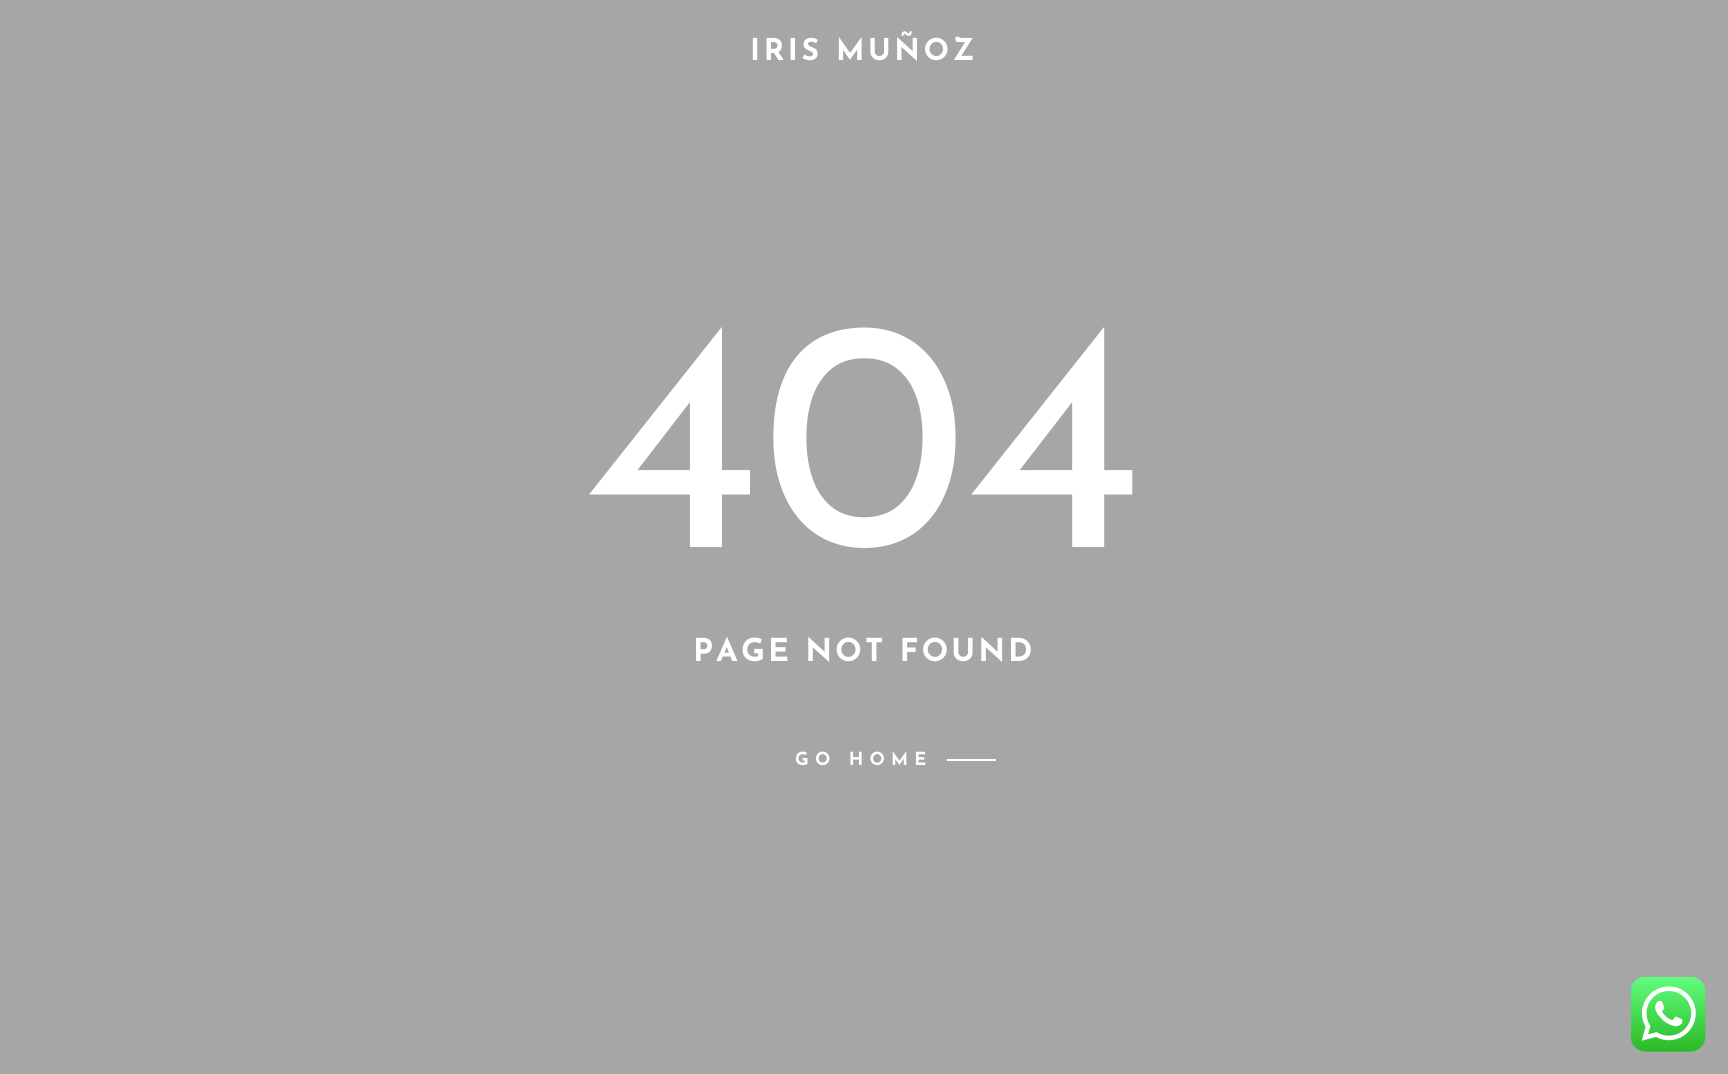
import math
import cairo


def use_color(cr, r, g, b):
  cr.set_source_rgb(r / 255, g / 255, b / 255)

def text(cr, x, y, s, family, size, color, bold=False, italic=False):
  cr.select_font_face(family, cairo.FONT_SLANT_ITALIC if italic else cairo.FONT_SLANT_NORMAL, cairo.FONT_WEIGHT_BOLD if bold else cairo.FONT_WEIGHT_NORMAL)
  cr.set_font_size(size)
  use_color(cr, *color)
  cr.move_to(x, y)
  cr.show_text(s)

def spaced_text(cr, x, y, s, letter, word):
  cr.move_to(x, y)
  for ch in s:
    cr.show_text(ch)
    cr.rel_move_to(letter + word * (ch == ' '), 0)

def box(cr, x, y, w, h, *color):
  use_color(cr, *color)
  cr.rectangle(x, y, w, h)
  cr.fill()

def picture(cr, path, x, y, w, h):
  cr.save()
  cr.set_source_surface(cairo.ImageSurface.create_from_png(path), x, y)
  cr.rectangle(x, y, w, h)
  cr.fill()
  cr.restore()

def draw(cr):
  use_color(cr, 166, 166, 166)
  cr.paint()
  box(cr, 947, 759, 49, 2, 255, 255, 255)
  picture(cr, "img_01.png", 1631, 977, 75, 75)
  cr.select_font_face("Josefin Sans", cairo.FONT_SLANT_NORMAL, cairo.FONT_WEIGHT_BOLD)
  cr.set_font_size(30)
  spaced_text(cr, 750, 60, "IRIS MUÑOZ", 3.6, 0)
  text(cr, 585, 547, "404", "Josefin Sans", 330, (255, 255, 255))
  cr.select_font_face("Josefin Sans", cairo.FONT_SLANT_NORMAL, cairo.FONT_WEIGHT_BOLD)
  cr.set_font_size(31.5)
  spaced_text(cr, 693, 661, "PAGE NOT FOUND", 3, 0)
  cr.set_font_size(18)
  spaced_text(cr, 795, 765, "GO HOME", 6.25, 0)


surface = cairo.ImageSurface(cairo.FORMAT_RGB24, 1728, 1074)
cr = cairo.Context(surface)
options = cairo.FontOptions()
options.set_hint_metrics(cairo.HINT_METRICS_OFF)
options.set_hint_style(cairo.HINT_STYLE_NONE)
cr.set_font_options(options)
cr.set_miter_limit(4)
draw(cr)
surface.write_to_png("out.png")
